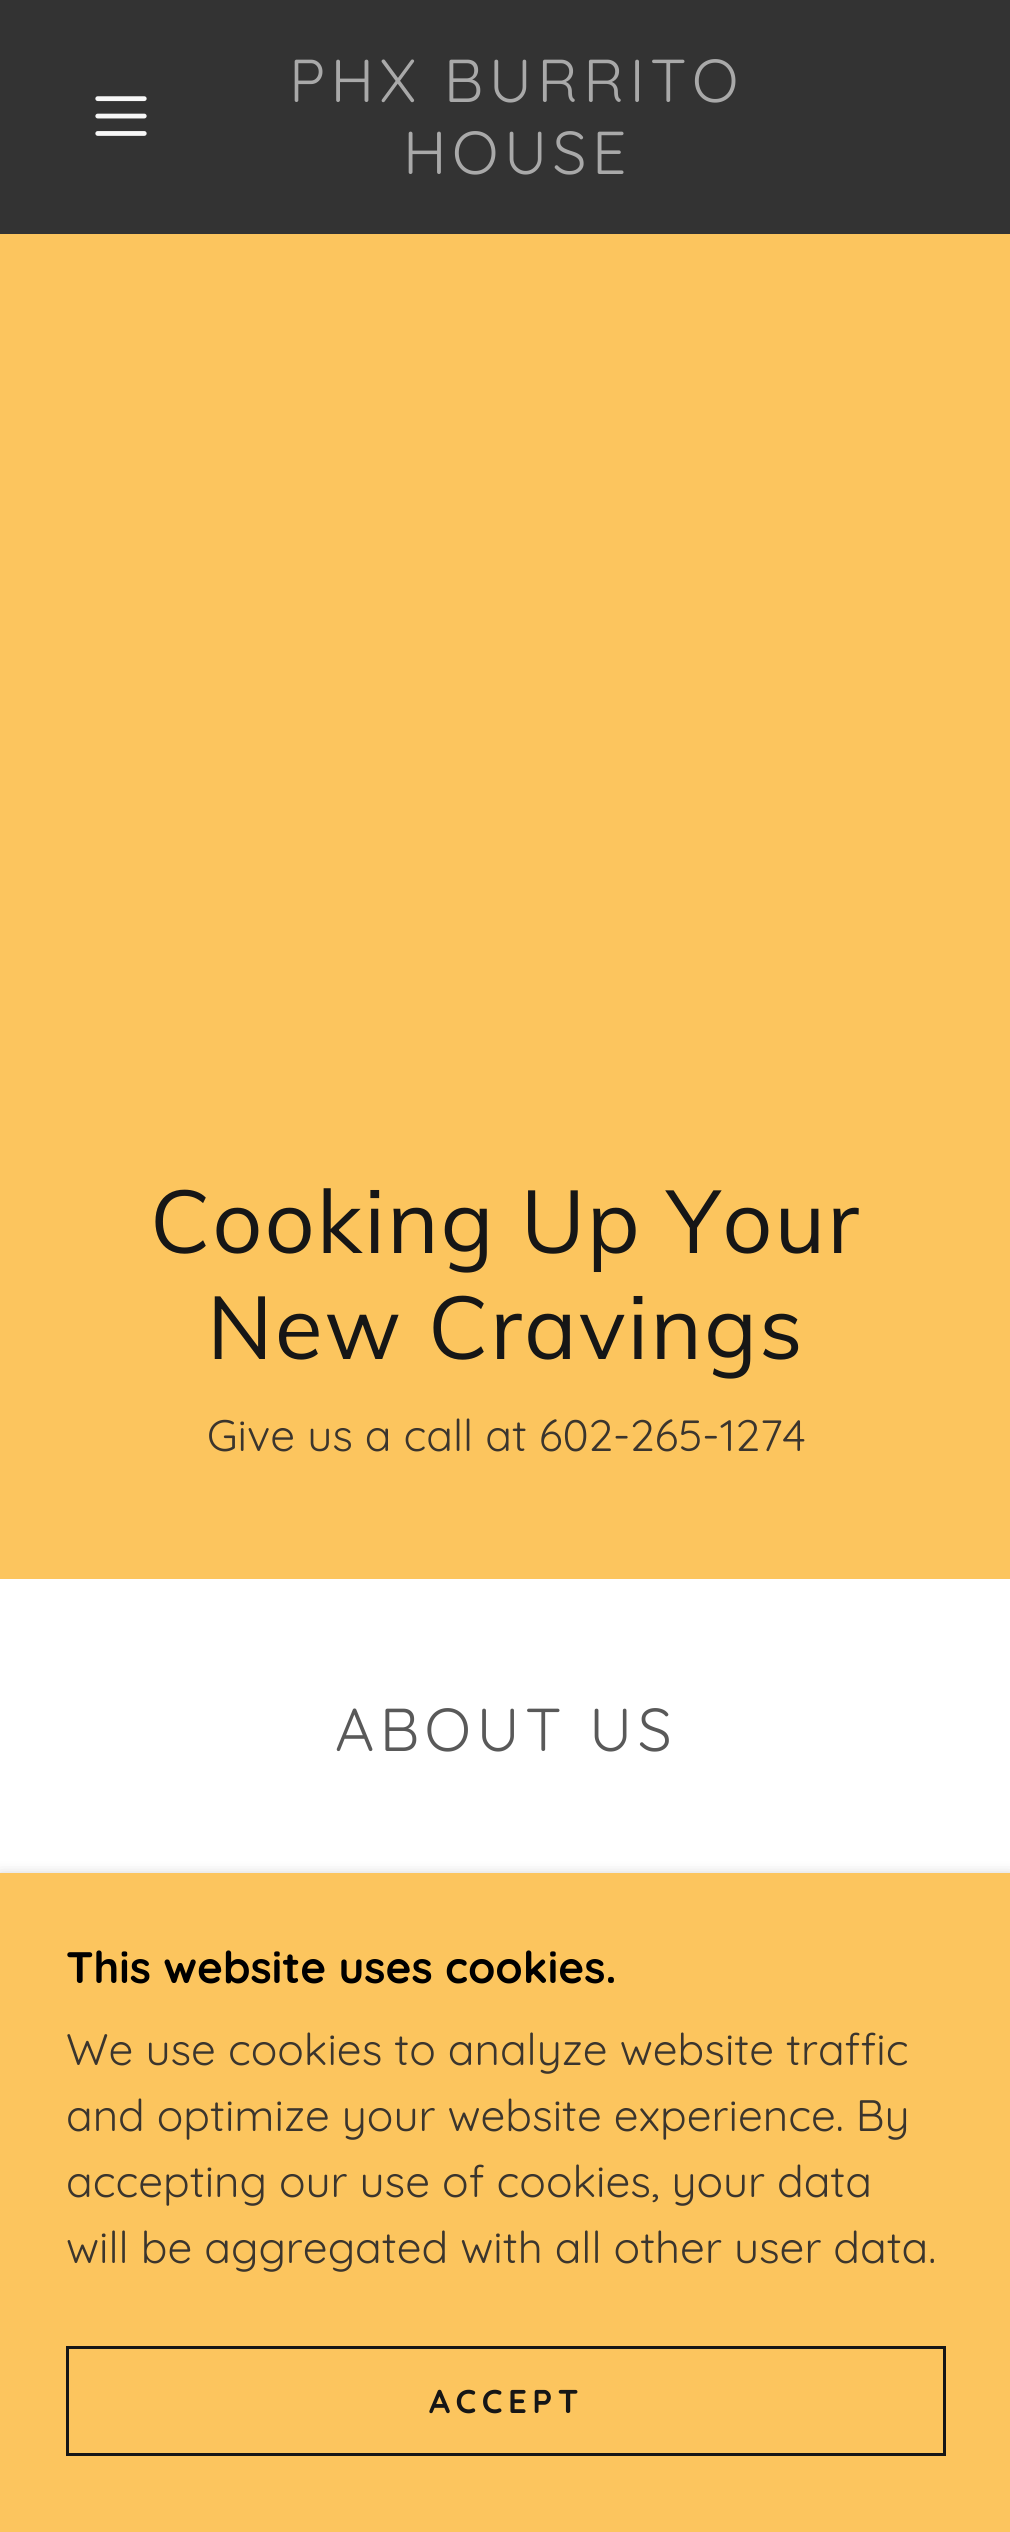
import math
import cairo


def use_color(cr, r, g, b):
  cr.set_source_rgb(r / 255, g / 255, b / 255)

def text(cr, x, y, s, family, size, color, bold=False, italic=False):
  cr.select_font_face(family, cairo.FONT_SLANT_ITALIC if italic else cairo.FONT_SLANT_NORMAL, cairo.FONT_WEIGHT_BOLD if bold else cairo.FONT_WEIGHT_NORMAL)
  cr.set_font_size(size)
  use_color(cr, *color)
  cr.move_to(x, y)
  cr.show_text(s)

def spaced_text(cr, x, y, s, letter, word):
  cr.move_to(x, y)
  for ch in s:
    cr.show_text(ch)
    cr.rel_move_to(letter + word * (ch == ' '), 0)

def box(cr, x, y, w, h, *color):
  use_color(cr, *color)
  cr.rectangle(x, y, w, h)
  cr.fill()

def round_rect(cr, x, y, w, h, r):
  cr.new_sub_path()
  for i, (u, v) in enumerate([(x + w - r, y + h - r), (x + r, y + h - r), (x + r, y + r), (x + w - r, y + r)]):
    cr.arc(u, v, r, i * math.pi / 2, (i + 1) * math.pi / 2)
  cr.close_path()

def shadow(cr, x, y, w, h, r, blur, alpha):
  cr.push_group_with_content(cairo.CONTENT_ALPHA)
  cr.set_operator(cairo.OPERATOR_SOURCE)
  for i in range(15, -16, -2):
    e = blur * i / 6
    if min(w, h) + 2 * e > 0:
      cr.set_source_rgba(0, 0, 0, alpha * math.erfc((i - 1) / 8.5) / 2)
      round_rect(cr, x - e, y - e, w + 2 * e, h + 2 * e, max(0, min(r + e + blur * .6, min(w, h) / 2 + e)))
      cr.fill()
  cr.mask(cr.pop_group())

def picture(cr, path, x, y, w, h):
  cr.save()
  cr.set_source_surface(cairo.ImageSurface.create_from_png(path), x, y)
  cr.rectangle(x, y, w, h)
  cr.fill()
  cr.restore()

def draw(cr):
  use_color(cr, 252, 197, 94)
  cr.paint()
  box(cr, 0, 0, 1010, 234, 51, 51, 51)
  picture(cr, "img_01.png", 95, 96, 52, 40)
  box(cr, 0, 1579, 1010, 294, 255, 255, 255)
  use_color(cr, 0, 0, 0)
  shadow(cr, 0, 1878, 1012, 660, 0, 8, 0.3)
  box(cr, 0, 1873, 1010, 659, 252, 197, 94)
  cr.rectangle(67.5, 2347.5, 877, 107)
  use_color(cr, 22, 22, 22)
  cr.set_line_width(3)
  cr.stroke()
  cr.select_font_face("Quicksand")
  cr.set_font_size(60.5)
  use_color(cr, 169, 169, 169)
  spaced_text(cr, 289, 102, "PHX BURRITO", 5.5, 0)
  spaced_text(cr, 403, 174, "HOUSE", 5.5, 0)
  cr.select_font_face("Muli")
  cr.set_font_size(88)
  use_color(cr, 22, 22, 22)
  spaced_text(cr, 150, 1253, "Cooking Up Your", 2, 0)
  spaced_text(cr, 207, 1359, "New Cravings", 2, 0)
  text(cr, 207, 1451, "Give us a call at 602-265-1274", "Quicksand", 44, (59, 53, 45))
  cr.set_font_size(60.5)
  use_color(cr, 89, 89, 89)
  spaced_text(cr, 335, 1751, "ABOUT US", 5.5, 0)
  text(cr, 66, 1983, "This website uses cookies.", "Quicksand", 44, (0, 0, 0), bold=True)
  text(cr, 66, 2065, "We use cookies to analyze website traffic", "Quicksand", 44, (59, 53, 45))
  text(cr, 66, 2131, "and optimize your website experience. By", "Quicksand", 44, (59, 53, 45))
  text(cr, 66, 2197, "accepting our use of cookies, your data", "Quicksand", 44, (59, 53, 45))
  text(cr, 66, 2263, "will be aggregated with all other user data.", "Quicksand", 44, (59, 53, 45))
  cr.select_font_face("Quicksand", cairo.FONT_SLANT_NORMAL, cairo.FONT_WEIGHT_BOLD)
  cr.set_font_size(33)
  use_color(cr, 22, 22, 22)
  spaced_text(cr, 429, 2413, "ACCEPT", 5.5, 0)


surface = cairo.ImageSurface(cairo.FORMAT_RGB24, 1010, 2532)
cr = cairo.Context(surface)
options = cairo.FontOptions()
options.set_hint_metrics(cairo.HINT_METRICS_OFF)
options.set_hint_style(cairo.HINT_STYLE_NONE)
cr.set_font_options(options)
cr.set_miter_limit(4)
draw(cr)
surface.write_to_png("out.png")
